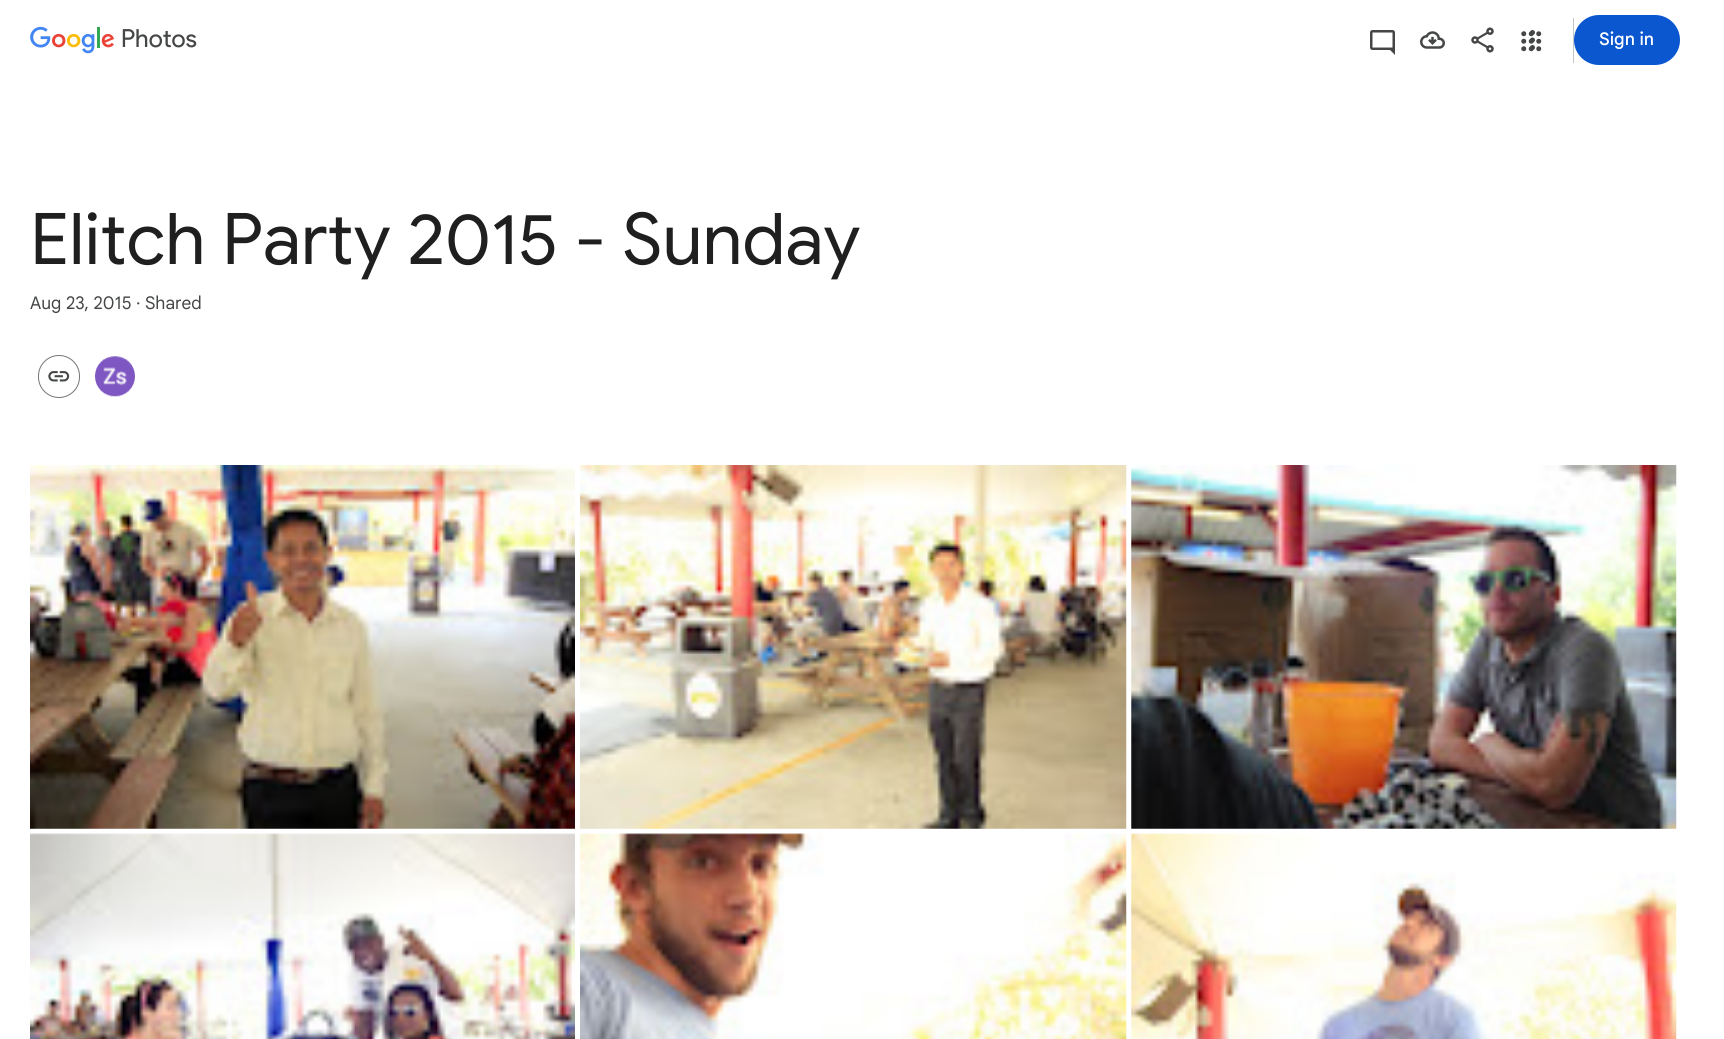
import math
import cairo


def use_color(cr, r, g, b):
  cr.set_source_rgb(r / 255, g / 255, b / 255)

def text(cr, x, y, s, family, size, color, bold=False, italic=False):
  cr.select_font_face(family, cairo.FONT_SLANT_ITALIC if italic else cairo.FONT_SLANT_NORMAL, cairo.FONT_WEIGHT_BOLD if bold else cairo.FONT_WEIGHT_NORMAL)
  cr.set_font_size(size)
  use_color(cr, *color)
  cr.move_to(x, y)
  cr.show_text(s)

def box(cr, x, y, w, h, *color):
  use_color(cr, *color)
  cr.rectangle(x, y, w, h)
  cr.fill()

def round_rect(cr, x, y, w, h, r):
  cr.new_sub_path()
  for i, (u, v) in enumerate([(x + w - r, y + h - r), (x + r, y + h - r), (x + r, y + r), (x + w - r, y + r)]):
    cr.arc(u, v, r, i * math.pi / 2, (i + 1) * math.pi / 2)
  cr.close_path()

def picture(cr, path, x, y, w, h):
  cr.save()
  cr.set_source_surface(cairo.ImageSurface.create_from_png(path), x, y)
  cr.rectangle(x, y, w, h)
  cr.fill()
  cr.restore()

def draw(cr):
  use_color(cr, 255, 255, 255)
  cr.paint()
  picture(cr, "img_01.png", 30, 26, 84, 28)
  picture(cr, "img_02.png", 1370, 30, 25, 25)
  picture(cr, "img_03.png", 1420, 31, 25, 18)
  picture(cr, "img_04.png", 1471, 27, 23, 26)
  picture(cr, "img_05.png", 1530, 30, 5, 20)
  box(cr, 1573, 18, 1, 45, 196, 199, 197)
  round_rect(cr, 38.5, 355.5, 41, 42, 20.5)
  use_color(cr, 116, 119, 117)
  cr.set_line_width(1)
  cr.stroke()
  picture(cr, "img_06.png", 48, 371, 22, 11)
  picture(cr, "img_07.png", 95, 356, 40, 41)
  picture(cr, "img_08.png", 30, 465, 545, 364)
  picture(cr, "img_09.png", 580, 465, 547, 364)
  picture(cr, "img_10.png", 1131, 465, 546, 364)
  picture(cr, "img_11.png", 30, 833, 545, 206)
  picture(cr, "img_12.png", 580, 833, 547, 206)
  picture(cr, "img_13.png", 1131, 833, 546, 206)
  picture(cr, "img_14.png", 1521, 31, 21, 21)
  use_color(cr, 11, 87, 208)
  round_rect(cr, 1574, 15, 106, 50, 25)
  cr.fill()
  text(cr, 121, 47, "Photos", "Product Sans", 25, (68, 71, 70))
  text(cr, 30, 264, "Elitch Party 2015 - Sunday", "Google Sans", 71.25, (31, 31, 31))
  text(cr, 30, 309, "Aug 23, 2015 · Shared", "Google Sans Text", 17.5, (68, 71, 70))
  text(cr, 1599, 45, "Sign in", "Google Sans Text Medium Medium", 17.5, (255, 255, 255))


surface = cairo.ImageSurface(cairo.FORMAT_RGB24, 1724, 1039)
cr = cairo.Context(surface)
options = cairo.FontOptions()
options.set_hint_metrics(cairo.HINT_METRICS_OFF)
options.set_hint_style(cairo.HINT_STYLE_NONE)
cr.set_font_options(options)
cr.set_miter_limit(4)
draw(cr)
surface.write_to_png("out.png")
